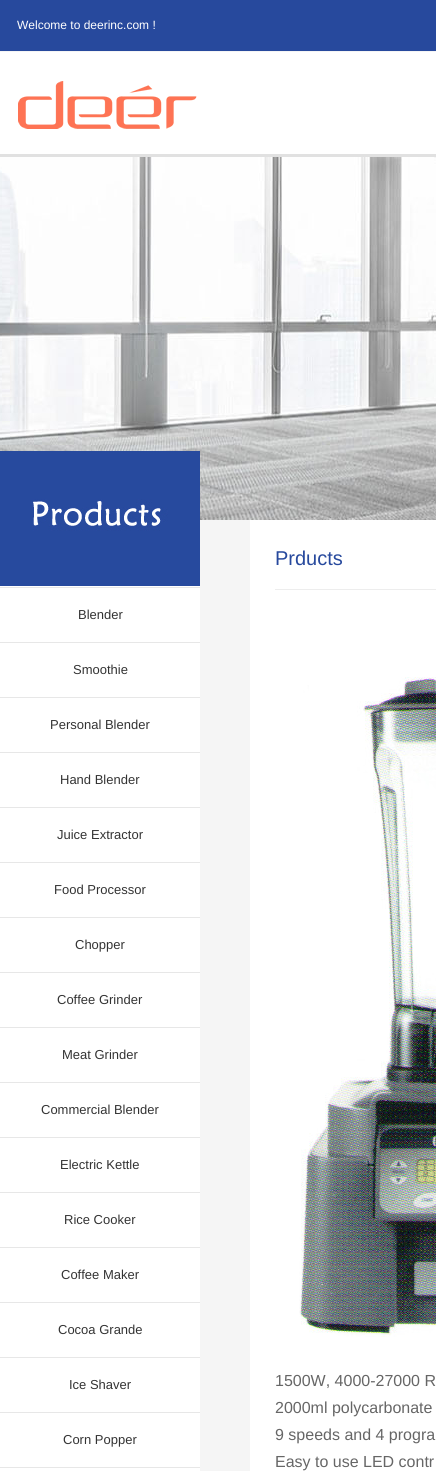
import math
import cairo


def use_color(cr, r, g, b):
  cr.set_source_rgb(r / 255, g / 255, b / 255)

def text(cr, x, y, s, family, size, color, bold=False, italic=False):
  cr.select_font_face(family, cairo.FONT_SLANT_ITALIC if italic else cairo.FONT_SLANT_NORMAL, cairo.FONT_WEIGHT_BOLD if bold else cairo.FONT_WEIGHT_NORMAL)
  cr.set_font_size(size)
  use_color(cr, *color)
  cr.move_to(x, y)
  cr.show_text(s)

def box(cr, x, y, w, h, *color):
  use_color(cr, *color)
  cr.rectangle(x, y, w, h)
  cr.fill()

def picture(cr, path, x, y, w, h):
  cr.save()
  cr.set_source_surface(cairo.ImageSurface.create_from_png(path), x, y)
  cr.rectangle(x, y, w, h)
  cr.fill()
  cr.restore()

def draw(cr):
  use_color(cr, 255, 255, 255)
  cr.paint()
  box(cr, 0, 0, 436, 51, 39, 73, 157)
  box(cr, 0, 51, 436, 1, 245, 245, 245)
  box(cr, 0, 154, 436, 3, 225, 225, 225)
  picture(cr, "img_01.png", 18, 81, 179, 48)
  picture(cr, "img_02.png", 0, 157, 436, 363)
  box(cr, 200, 520, 50, 951, 245, 245, 245)
  picture(cr, "img_03.png", 0, 451, 200, 135)
  box(cr, 0, 587, 200, 1, 231, 231, 231)
  box(cr, 0, 642, 200, 1, 231, 231, 231)
  box(cr, 0, 697, 200, 1, 231, 231, 231)
  box(cr, 0, 752, 200, 1, 231, 231, 231)
  box(cr, 0, 807, 200, 1, 231, 231, 231)
  box(cr, 0, 862, 200, 1, 231, 231, 231)
  box(cr, 0, 917, 200, 1, 231, 231, 231)
  box(cr, 0, 972, 200, 1, 231, 231, 231)
  box(cr, 0, 1027, 200, 1, 231, 231, 231)
  box(cr, 0, 1082, 200, 1, 231, 231, 231)
  box(cr, 0, 1137, 200, 1, 231, 231, 231)
  box(cr, 0, 1192, 200, 1, 231, 231, 231)
  box(cr, 0, 1247, 200, 1, 231, 231, 231)
  box(cr, 0, 1302, 200, 1, 231, 231, 231)
  box(cr, 0, 1357, 200, 1, 231, 231, 231)
  box(cr, 0, 1412, 200, 1, 231, 231, 231)
  box(cr, 0, 1467, 200, 1, 231, 231, 231)
  box(cr, 275, 589, 161, 1, 237, 237, 237)
  picture(cr, "img_04.png", 299, 677, 137, 660)
  text(cr, 17, 29, "Welcome to deerinc.com !", "Liberation Sans", 12, (255, 255, 255))
  text(cr, 78, 619, "Blender", "Liberation Sans", 13, (51, 51, 51))
  text(cr, 73, 674, "Smoothie", "Liberation Sans", 13, (51, 51, 51))
  text(cr, 50, 729, "Personal Blender", "Liberation Sans", 13, (51, 51, 51))
  text(cr, 60, 784, "Hand Blender", "Liberation Sans", 13, (51, 51, 51))
  text(cr, 57, 839, "Juice Extractor", "Liberation Sans", 13, (51, 51, 51))
  text(cr, 54, 894, "Food Processor", "Liberation Sans", 13, (51, 51, 51))
  text(cr, 75, 949, "Chopper", "Liberation Sans", 13, (51, 51, 51))
  text(cr, 57, 1004, "Coffee Grinder", "Liberation Sans", 13, (51, 51, 51))
  text(cr, 62, 1059, "Meat Grinder", "Liberation Sans", 13, (51, 51, 51))
  text(cr, 41, 1114, "Commercial Blender", "Liberation Sans", 13, (51, 51, 51))
  text(cr, 60, 1169, "Electric Kettle", "Liberation Sans", 13, (51, 51, 51))
  text(cr, 64, 1224, "Rice Cooker", "Liberation Sans", 13, (51, 51, 51))
  text(cr, 61, 1279, "Coffee Maker", "Liberation Sans", 13, (51, 51, 51))
  text(cr, 58, 1334, "Cocoa Grande", "Liberation Sans", 13, (51, 51, 51))
  text(cr, 69, 1389, "Ice Shaver", "Liberation Sans", 13, (51, 51, 51))
  text(cr, 63, 1444, "Corn Popper", "Liberation Sans", 13, (51, 51, 51))
  text(cr, 275, 565, "Prducts", "Liberation Sans", 20, (39, 73, 157))
  text(cr, 275, 1386, "1500W, 4000-27000 R", "Liberation Sans", 16, (102, 102, 102))
  text(cr, 275, 1413, "2000ml polycarbonate", "Liberation Sans", 16, (102, 102, 102))
  text(cr, 275, 1440, "9 speeds and 4 progra", "Liberation Sans", 16, (102, 102, 102))
  text(cr, 275, 1467, "Easy to use LED contr", "Liberation Sans", 16, (102, 102, 102))


surface = cairo.ImageSurface(cairo.FORMAT_RGB24, 436, 1471)
cr = cairo.Context(surface)
options = cairo.FontOptions()
options.set_hint_metrics(cairo.HINT_METRICS_OFF)
options.set_hint_style(cairo.HINT_STYLE_NONE)
cr.set_font_options(options)
cr.set_miter_limit(4)
draw(cr)
surface.write_to_png("out.png")
